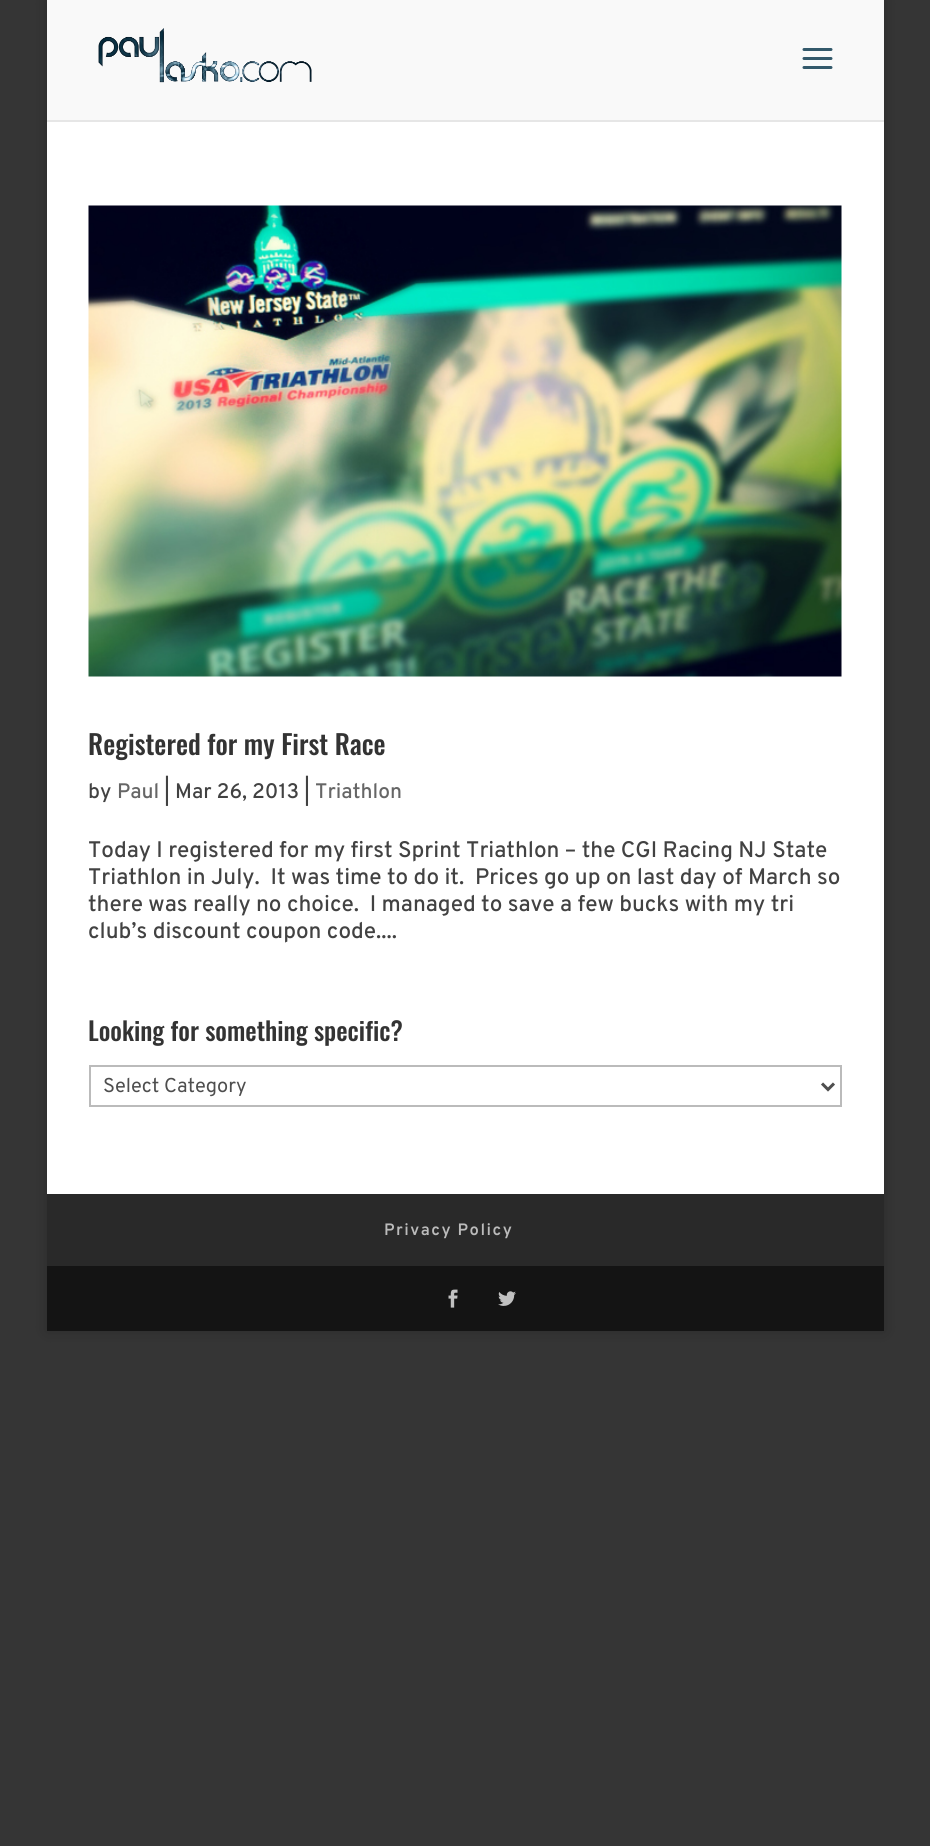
import math
import cairo


def use_color(cr, r, g, b):
  cr.set_source_rgb(r / 255, g / 255, b / 255)

def text(cr, x, y, s, family, size, color, bold=False, italic=False):
  cr.select_font_face(family, cairo.FONT_SLANT_ITALIC if italic else cairo.FONT_SLANT_NORMAL, cairo.FONT_WEIGHT_BOLD if bold else cairo.FONT_WEIGHT_NORMAL)
  cr.set_font_size(size)
  use_color(cr, *color)
  cr.move_to(x, y)
  cr.show_text(s)

def spaced_text(cr, x, y, s, letter, word):
  cr.move_to(x, y)
  for ch in s:
    cr.show_text(ch)
    cr.rel_move_to(letter + word * (ch == ' '), 0)

def box(cr, x, y, w, h, *color):
  use_color(cr, *color)
  cr.rectangle(x, y, w, h)
  cr.fill()

def round_rect(cr, x, y, w, h, r):
  cr.new_sub_path()
  for i, (u, v) in enumerate([(x + w - r, y + h - r), (x + r, y + h - r), (x + r, y + r), (x + w - r, y + r)]):
    cr.arc(u, v, r, i * math.pi / 2, (i + 1) * math.pi / 2)
  cr.close_path()

def shadow(cr, x, y, w, h, r, blur, alpha):
  cr.push_group_with_content(cairo.CONTENT_ALPHA)
  cr.set_operator(cairo.OPERATOR_SOURCE)
  for i in range(15, -16, -2):
    e = blur * i / 6
    if min(w, h) + 2 * e > 0:
      cr.set_source_rgba(0, 0, 0, alpha * math.erfc((i - 1) / 8.5) / 2)
      round_rect(cr, x - e, y - e, w + 2 * e, h + 2 * e, max(0, min(r + e + blur * .6, min(w, h) / 2 + e)))
      cr.fill()
  cr.mask(cr.pop_group())

def picture(cr, path, x, y, w, h):
  cr.save()
  cr.set_source_surface(cairo.ImageSurface.create_from_png(path), x, y)
  cr.rectangle(x, y, w, h)
  cr.fill()
  cr.restore()

def draw(cr):
  use_color(cr, 53, 53, 53)
  cr.paint()
  use_color(cr, 0, 0, 0)
  shadow(cr, 47, 0, 837, 1331, 0, 7.5, 0.2)
  use_color(cr, 230, 230, 230)
  cr.new_path()
  cr.move_to(47, 120)
  cr.line_to(47, 122)
  cr.line_to(884, 122)
  cr.line_to(884, 2)
  cr.line_to(884, 120)
  cr.close_path()
  cr.fill()
  box(cr, 47, 0, 837, 120, 249, 249, 249)
  picture(cr, "img_01.png", 98, 28, 214, 55)
  picture(cr, "img_02.png", 802, 48, 31, 21)
  box(cr, 47, 122, 837, 1072, 255, 255, 255)
  picture(cr, "img_03.png", 88, 205, 754, 472)
  cr.rectangle(90, 1066, 751, 40)
  use_color(cr, 187, 187, 187)
  cr.stroke()
  cr.new_path()
  cr.move_to(822, 1083.5)
  cr.line_to(828, 1089.5)
  cr.line_to(834, 1083.5)
  use_color(cr, 78, 78, 78)
  cr.set_line_width(3)
  cr.stroke()
  box(cr, 47, 1194, 837, 72, 41, 41, 41)
  box(cr, 47, 1266, 837, 65, 20, 20, 20)
  picture(cr, "img_04.png", 448, 1289, 10, 19)
  picture(cr, "img_05.png", 498, 1291, 18, 15)
  text(cr, 88, 755, "Registered for my First Race", "Oswald Medium", 27, (51, 51, 51))
  text(cr, 88, 798, "by", "Overpass Medium", 21, (66, 66, 66))
  text(cr, 117, 798, "Paul", "Overpass Medium", 21, (102, 102, 102))
  text(cr, 164, 798, "| Mar 26, 2013 |", "Overpass Medium", 21, (66, 66, 66))
  text(cr, 315, 798, "Triathlon", "Overpass Medium", 21, (102, 102, 102))
  text(cr, 88, 857, "Today I registered for my first Sprint Triathlon – the CGI Racing NJ State", "Overpass Medium", 22.5, (66, 66, 66))
  text(cr, 88, 884, "Triathlon in July.  It was time to do it.  Prices go up on last day of March so", "Overpass Medium", 22.5, (66, 66, 66))
  text(cr, 88, 911, "there was really no choice.  I managed to save a few bucks with my tri", "Overpass Medium", 22.5, (66, 66, 66))
  text(cr, 88, 938, "club’s discount coupon code....", "Overpass Medium", 22.5, (66, 66, 66))
  text(cr, 88, 1041, "Looking for something specific?", "Oswald Medium", 25.5, (51, 51, 51))
  text(cr, 103, 1092, "Select Category", "Overpass", 20, (78, 78, 78))
  cr.select_font_face("Overpass SemiBold")
  cr.set_font_size(16.5)
  use_color(cr, 187, 187, 187)
  spaced_text(cr, 384, 1235, "Privacy Policy", 1.5, 0)


surface = cairo.ImageSurface(cairo.FORMAT_RGB24, 930, 1846)
cr = cairo.Context(surface)
options = cairo.FontOptions()
options.set_hint_metrics(cairo.HINT_METRICS_OFF)
options.set_hint_style(cairo.HINT_STYLE_NONE)
cr.set_font_options(options)
cr.set_miter_limit(4)
draw(cr)
surface.write_to_png("out.png")
